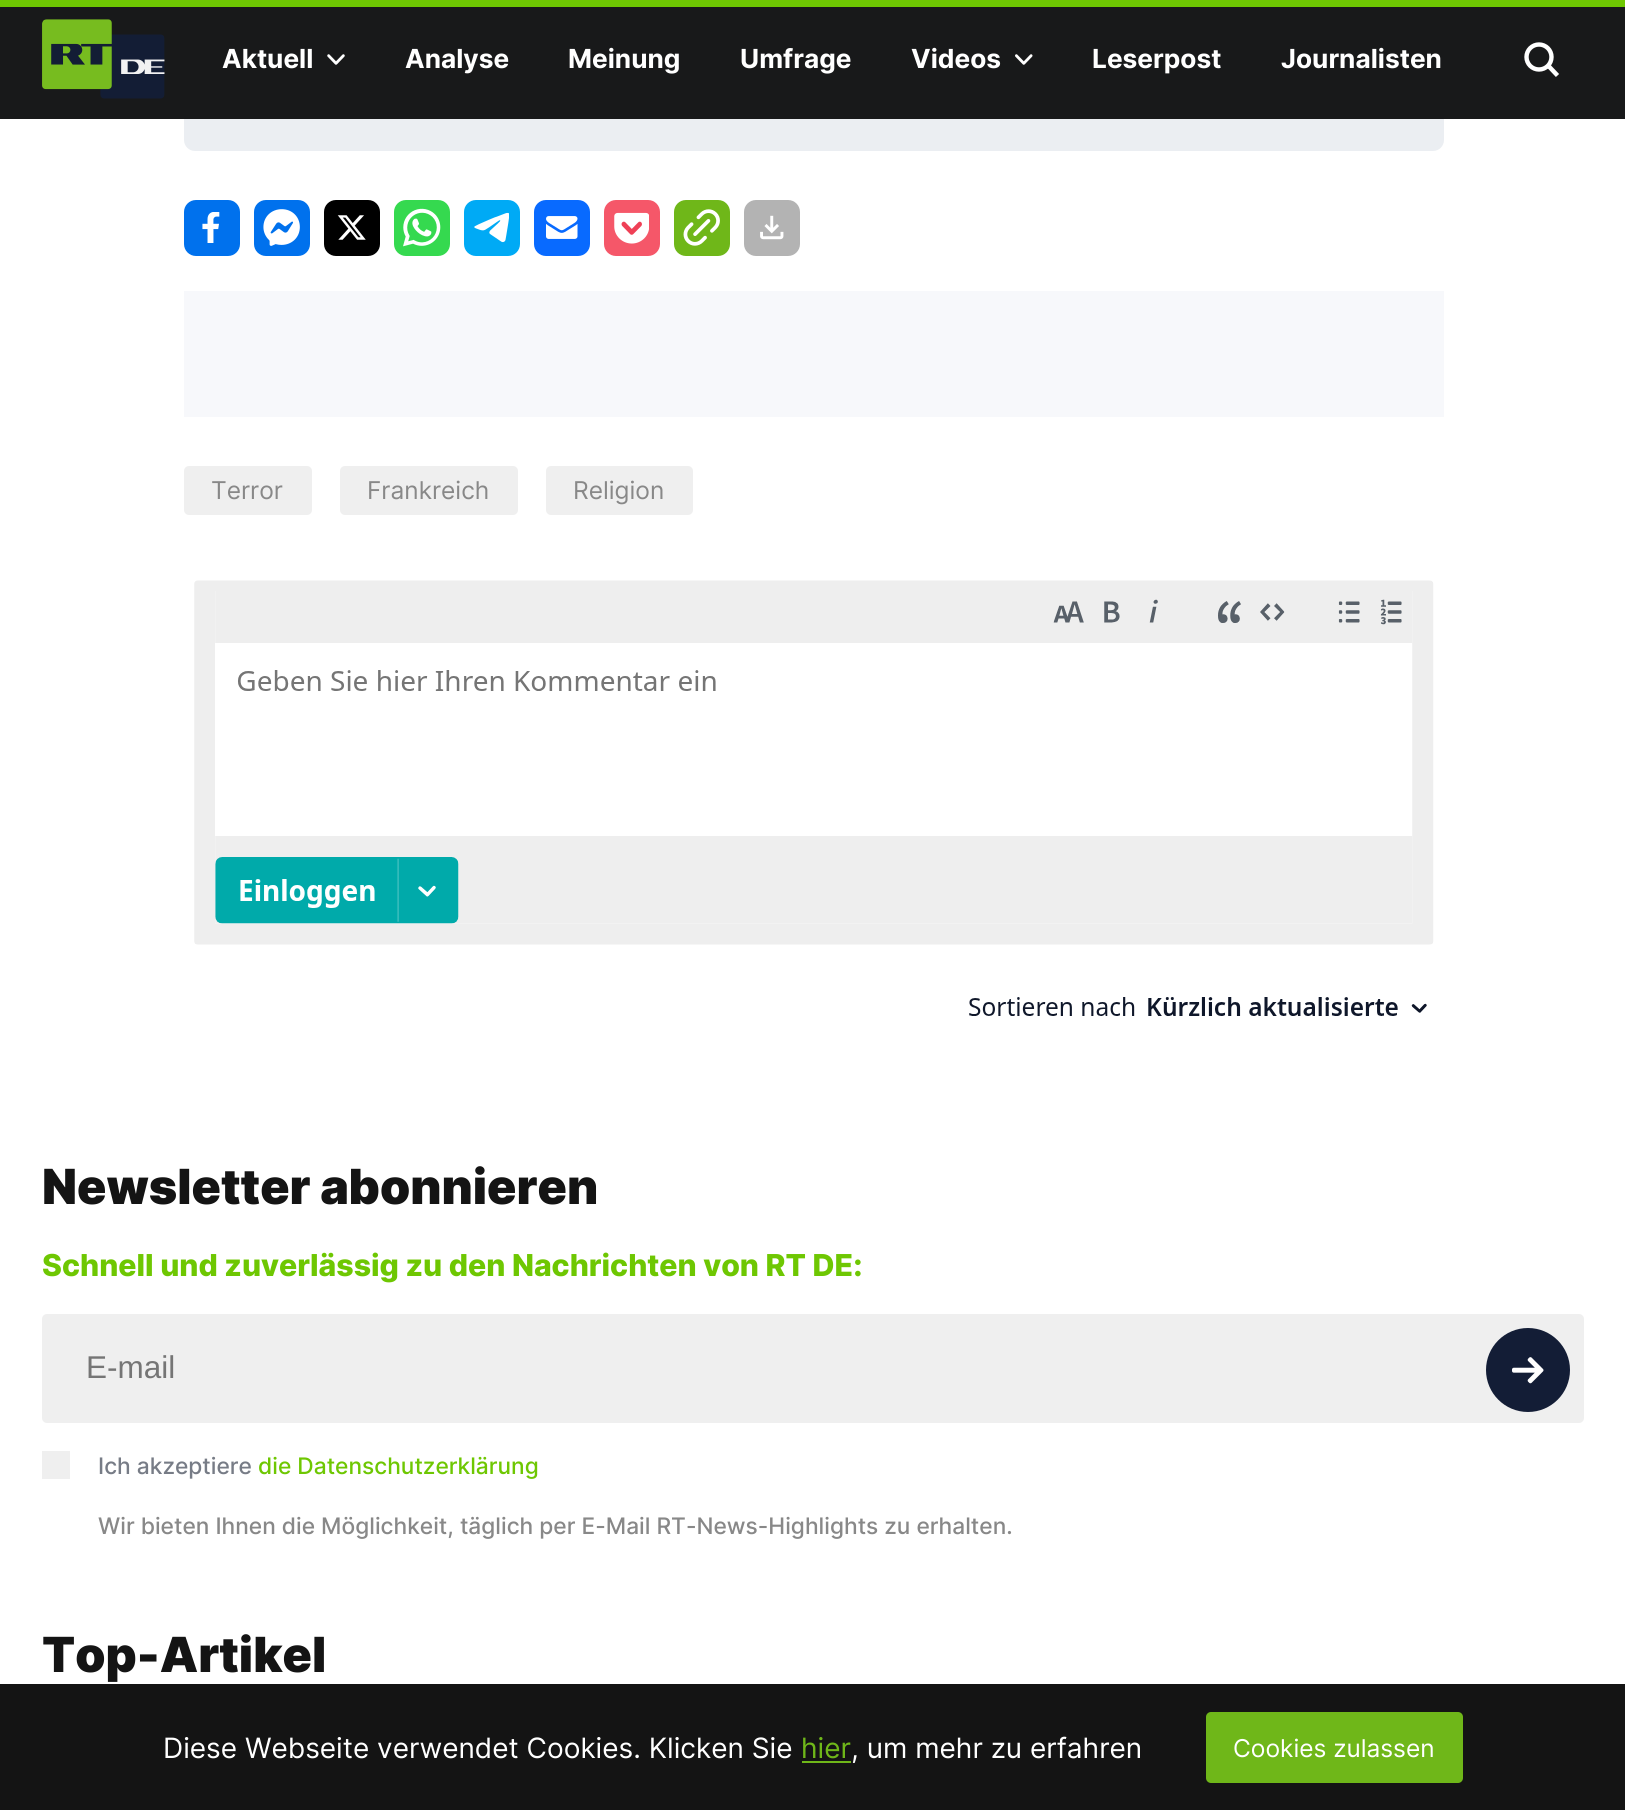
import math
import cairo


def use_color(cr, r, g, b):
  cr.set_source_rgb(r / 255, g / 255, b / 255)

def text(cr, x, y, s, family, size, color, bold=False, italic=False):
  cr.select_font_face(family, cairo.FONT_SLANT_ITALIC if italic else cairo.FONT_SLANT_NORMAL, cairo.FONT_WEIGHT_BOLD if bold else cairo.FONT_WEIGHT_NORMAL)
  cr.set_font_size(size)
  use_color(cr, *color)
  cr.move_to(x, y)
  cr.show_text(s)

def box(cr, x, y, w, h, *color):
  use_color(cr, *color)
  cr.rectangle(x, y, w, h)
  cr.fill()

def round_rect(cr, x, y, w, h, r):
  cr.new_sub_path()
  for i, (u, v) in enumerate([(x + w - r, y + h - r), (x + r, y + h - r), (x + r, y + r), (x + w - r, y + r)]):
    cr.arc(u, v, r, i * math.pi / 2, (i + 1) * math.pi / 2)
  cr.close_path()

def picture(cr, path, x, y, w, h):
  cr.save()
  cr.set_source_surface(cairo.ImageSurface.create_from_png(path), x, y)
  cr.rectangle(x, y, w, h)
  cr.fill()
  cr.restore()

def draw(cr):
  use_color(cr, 255, 255, 255)
  cr.paint()
  use_color(cr, 235, 238, 242)
  round_rect(cr, 184, -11, 1260, 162, 11)
  cr.fill()
  box(cr, 0, 0, 1625, 7, 110, 199, 2)
  box(cr, 0, 7, 1625, 112, 24, 25, 26)
  picture(cr, "img_01.png", 42, 19, 123, 80)
  picture(cr, "img_02.png", 327, 54, 18, 11)
  picture(cr, "img_03.png", 1015, 54, 18, 11)
  cr.arc(1539, 57, 12.5, 0, 2 * math.pi)
  use_color(cr, 255, 255, 255)
  cr.set_line_width(4.4)
  cr.stroke()
  cr.new_path()
  cr.move_to(1548.5, 66)
  cr.line_to(1557.5, 75.5)
  cr.stroke()
  use_color(cr, 0, 113, 237)
  round_rect(cr, 184, 200, 56, 56, 12)
  cr.fill()
  picture(cr, "img_04.png", 202, 212, 18, 31)
  round_rect(cr, 254, 200, 56, 56, 12)
  cr.fill()
  picture(cr, "img_05.png", 263, 209, 37, 37)
  use_color(cr, 0, 0, 0)
  round_rect(cr, 324, 200, 56, 56, 12)
  cr.fill()
  picture(cr, "img_06.png", 337, 215, 29, 25)
  use_color(cr, 53, 217, 79)
  round_rect(cr, 394, 200, 56, 56, 12)
  cr.fill()
  picture(cr, "img_07.png", 403, 208, 38, 39)
  use_color(cr, 0, 170, 245)
  round_rect(cr, 464, 200, 56, 56, 12)
  cr.fill()
  picture(cr, "img_08.png", 474, 212, 35, 31)
  use_color(cr, 8, 106, 255)
  round_rect(cr, 534, 200, 56, 56, 12)
  cr.fill()
  picture(cr, "img_09.png", 546, 216, 32, 23)
  use_color(cr, 245, 87, 105)
  round_rect(cr, 604, 200, 56, 56, 12)
  cr.fill()
  picture(cr, "img_10.png", 614, 212, 35, 32)
  use_color(cr, 111, 183, 25)
  round_rect(cr, 674, 200, 56, 56, 12)
  cr.fill()
  picture(cr, "img_11.png", 683, 209, 37, 37)
  use_color(cr, 179, 179, 179)
  round_rect(cr, 744, 200, 56, 56, 12)
  cr.fill()
  picture(cr, "img_12.png", 760, 215, 24, 25)
  box(cr, 184, 291, 1260, 126, 247, 248, 251)
  use_color(cr, 239, 239, 239)
  round_rect(cr, 184, 466, 128, 49, 5)
  cr.fill()
  round_rect(cr, 340, 466, 178, 49, 5)
  cr.fill()
  round_rect(cr, 546, 466, 147, 49, 5)
  cr.fill()
  picture(cr, "img_13.png", 194, 580, 1240, 436)
  round_rect(cr, 42, 1314, 1542, 109, 5)
  cr.fill()
  use_color(cr, 19, 29, 54)
  cr.arc(1528, 1370, 42, 0, 2 * math.pi)
  cr.fill()
  picture(cr, "img_14.png", 1512, 1357, 32, 27)
  box(cr, 42, 1451, 28, 28, 239, 239, 239)
  box(cr, 0, 1684, 1625, 126, 20, 20, 20)
  box(cr, 802, 1761, 49, 2, 111, 183, 25)
  round_rect(cr, 1206, 1712, 257, 71, 5)
  cr.fill()
  text(cr, 222, 68, "Aktuell", "Inter", 26.25, (255, 255, 255), bold=True)
  text(cr, 405, 68, "Analyse", "Inter", 26.25, (255, 255, 255), bold=True)
  text(cr, 568, 68, "Meinung", "Inter", 26.25, (255, 255, 255), bold=True)
  text(cr, 740, 68, "Umfrage", "Inter", 26.25, (255, 255, 255), bold=True)
  text(cr, 911, 68, "Videos", "Inter", 26.25, (255, 255, 255), bold=True)
  text(cr, 1092, 68, "Leserpost", "Inter", 26.25, (255, 255, 255), bold=True)
  text(cr, 1281, 68, "Journalisten", "Inter", 26.25, (255, 255, 255), bold=True)
  text(cr, 211, 499, "Terror", "Inter", 24.5, (136, 136, 136))
  text(cr, 367, 499, "Frankreich", "Inter", 24.5, (136, 136, 136))
  text(cr, 573, 499, "Religion", "Inter", 24.5, (136, 136, 136))
  text(cr, 42, 1204, "Newsletter abonnieren", "Inter Black", 48.4, (20, 20, 20))
  text(cr, 42, 1276, "Schnell und zuverlässig zu den Nachrichten von RT DE:", "Inter ExtraBold", 30.2, (110, 199, 2))
  text(cr, 86, 1378, "E-mail", "Liberation Sans", 31.5, (117, 117, 117))
  text(cr, 98, 1474, "Ich akzeptiere", "Inter Medium", 22.75, (119, 124, 134))
  text(cr, 258, 1474, "die Datenschutzerklärung", "Inter Medium", 22.75, (110, 199, 2))
  text(cr, 98, 1534, "Wir bieten Ihnen die Möglichkeit, täglich per E-Mail RT-News-Highlights zu erhalten.", "Inter Medium", 22.75, (136, 136, 136))
  text(cr, 42, 1672, "Top-Artikel", "Inter Black", 48.4, (20, 20, 20))
  text(cr, 163, 1758, "Diese Webseite verwendet Cookies. Klicken Sie", "Inter", 28, (255, 255, 255))
  text(cr, 801, 1758, "hier", "Inter", 28, (111, 183, 25))
  text(cr, 851, 1758, ", um mehr zu erfahren", "Inter", 28, (255, 255, 255))
  text(cr, 1233, 1757, "Cookies zulassen", "Inter", 24.5, (255, 255, 255))


surface = cairo.ImageSurface(cairo.FORMAT_RGB24, 1625, 1810)
cr = cairo.Context(surface)
options = cairo.FontOptions()
options.set_hint_metrics(cairo.HINT_METRICS_OFF)
options.set_hint_style(cairo.HINT_STYLE_NONE)
cr.set_font_options(options)
cr.set_miter_limit(4)
draw(cr)
surface.write_to_png("out.png")
